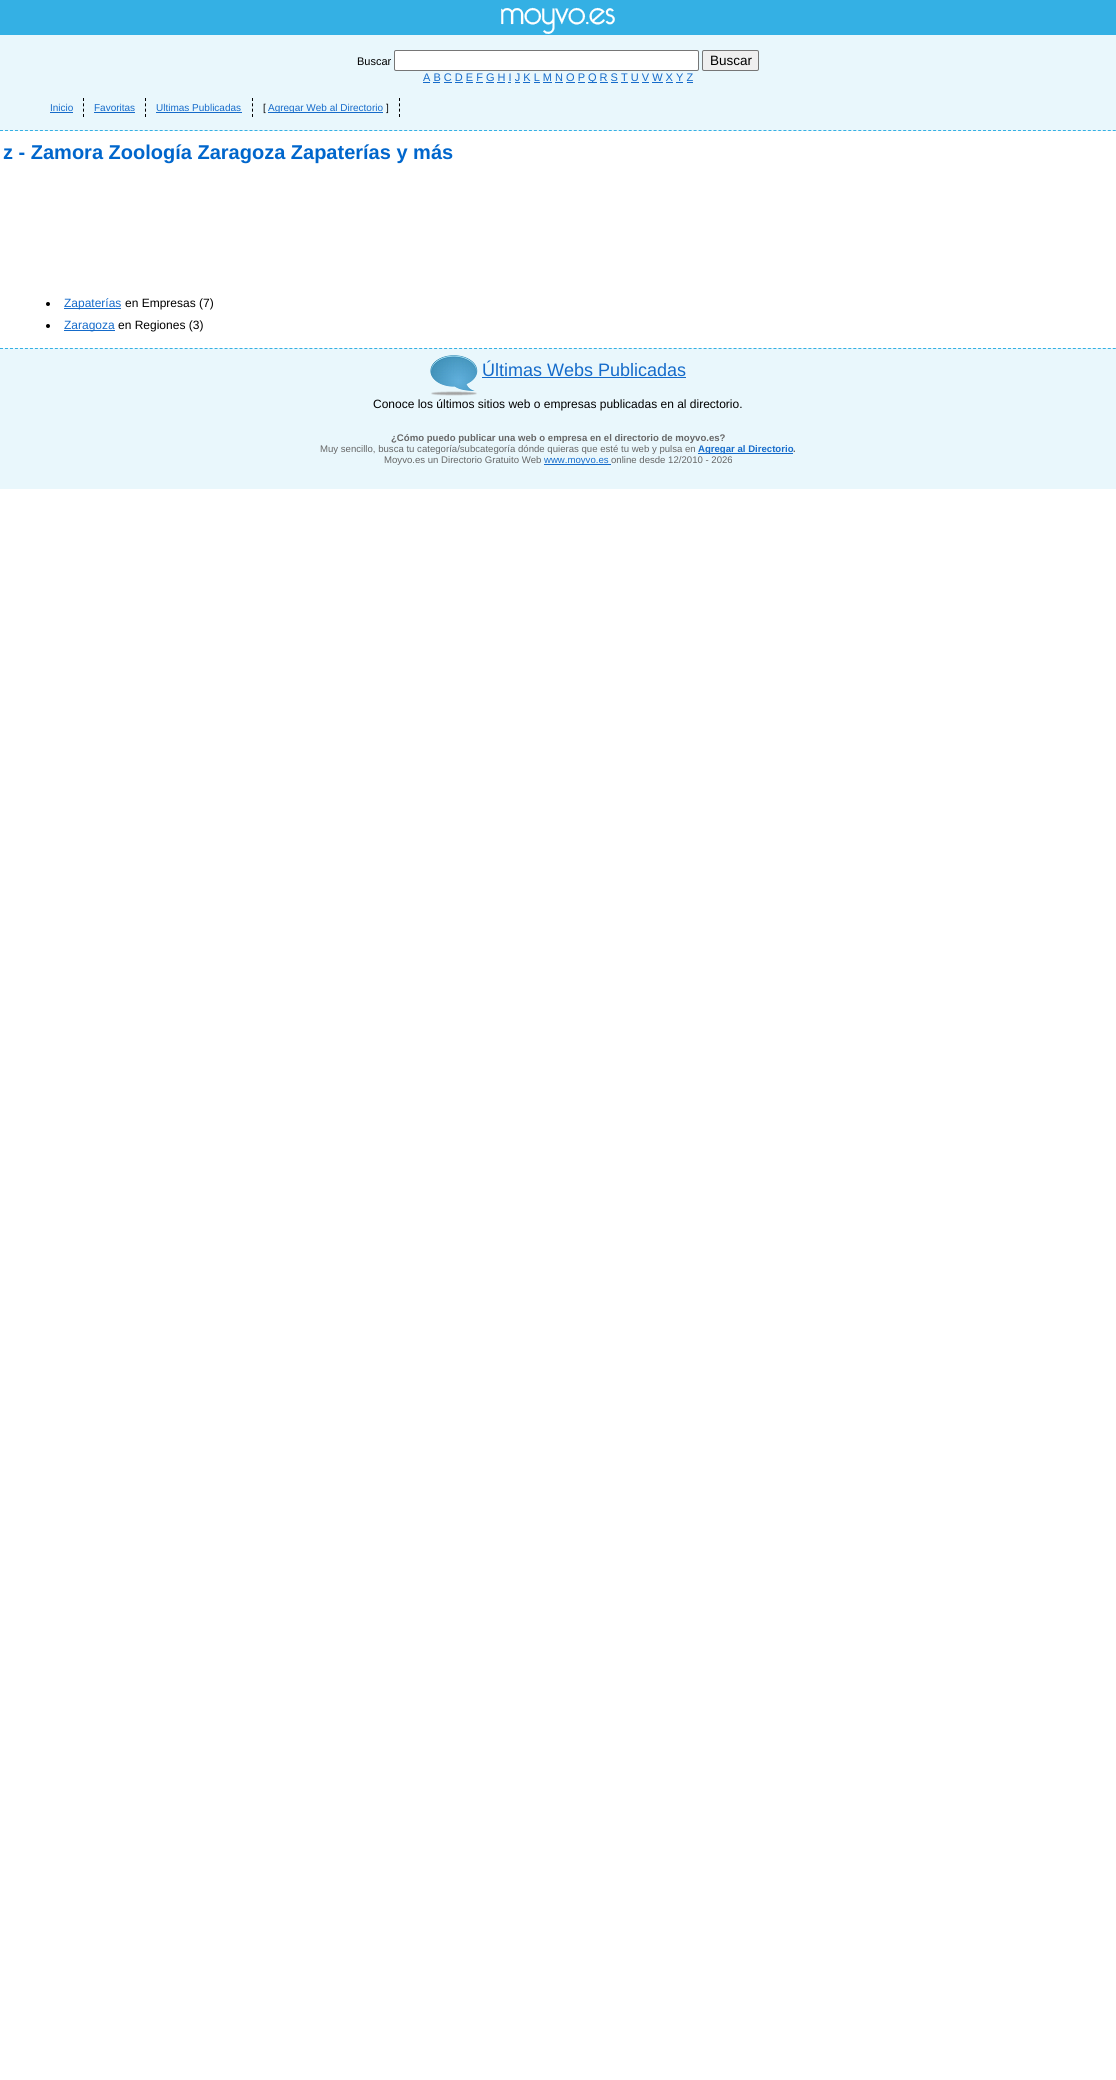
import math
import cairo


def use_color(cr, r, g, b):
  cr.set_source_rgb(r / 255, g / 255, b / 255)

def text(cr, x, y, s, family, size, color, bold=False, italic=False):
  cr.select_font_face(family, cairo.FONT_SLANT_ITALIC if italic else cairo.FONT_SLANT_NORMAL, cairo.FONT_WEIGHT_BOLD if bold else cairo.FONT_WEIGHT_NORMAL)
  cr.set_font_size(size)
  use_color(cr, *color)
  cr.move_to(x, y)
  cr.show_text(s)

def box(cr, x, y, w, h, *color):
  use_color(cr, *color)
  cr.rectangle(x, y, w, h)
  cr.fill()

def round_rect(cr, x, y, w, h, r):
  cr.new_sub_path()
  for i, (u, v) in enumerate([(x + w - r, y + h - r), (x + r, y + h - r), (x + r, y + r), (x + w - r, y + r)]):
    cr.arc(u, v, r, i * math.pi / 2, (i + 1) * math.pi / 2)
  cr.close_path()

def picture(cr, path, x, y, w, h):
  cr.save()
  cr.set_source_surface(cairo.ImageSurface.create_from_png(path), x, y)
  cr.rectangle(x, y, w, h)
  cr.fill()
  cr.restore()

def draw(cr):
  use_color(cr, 255, 255, 255)
  cr.paint()
  box(cr, 0, 0, 1116, 35, 52, 176, 228)
  picture(cr, "img_01.png", 501, 7, 114, 27)
  box(cr, 0, 35, 1116, 96, 233, 247, 252)
  cr.new_path()
  cr.move_to(0, 130.5)
  cr.line_to(1116, 130.5)
  use_color(cr, 52, 176, 228)
  cr.set_line_width(1)
  cr.set_dash([3, 1.99])
  cr.stroke()
  use_color(cr, 255, 255, 255)
  round_rect(cr, 394.5, 50.5, 304, 20, 1.5)
  cr.fill_preserve()
  use_color(cr, 118, 118, 118)
  cr.set_dash([])
  cr.stroke()
  use_color(cr, 239, 239, 239)
  round_rect(cr, 702.5, 50.5, 56, 20, 1.5)
  cr.fill_preserve()
  use_color(cr, 118, 118, 118)
  cr.stroke()
  box(cr, 423, 82, 7, 1, 21, 107, 202)
  box(cr, 588, 82, 9, 1, 21, 107, 202)
  box(cr, 433, 82, 7, 1, 21, 107, 202)
  box(cr, 444, 82, 8, 1, 21, 107, 202)
  box(cr, 455, 82, 8, 1, 21, 107, 202)
  box(cr, 466, 82, 7, 1, 21, 107, 202)
  box(cr, 476, 82, 7, 1, 21, 107, 202)
  box(cr, 486, 82, 8, 1, 21, 107, 202)
  box(cr, 497, 82, 8, 1, 21, 107, 202)
  box(cr, 508, 82, 3, 1, 21, 107, 202)
  box(cr, 515, 82, 5, 1, 21, 107, 202)
  box(cr, 523, 82, 7, 1, 21, 107, 202)
  box(cr, 534, 82, 6, 1, 21, 107, 202)
  box(cr, 543, 82, 9, 1, 21, 107, 202)
  box(cr, 555, 82, 8, 1, 21, 107, 202)
  box(cr, 566, 82, 9, 1, 21, 107, 202)
  box(cr, 578, 82, 7, 1, 21, 107, 202)
  box(cr, 600, 82, 8, 1, 21, 107, 202)
  box(cr, 611, 82, 7, 1, 21, 107, 202)
  box(cr, 621, 82, 7, 1, 21, 107, 202)
  box(cr, 631, 82, 8, 1, 21, 107, 202)
  box(cr, 642, 82, 7, 1, 21, 107, 202)
  box(cr, 652, 82, 11, 1, 21, 107, 202)
  box(cr, 666, 82, 7, 1, 21, 107, 202)
  box(cr, 676, 82, 7, 1, 21, 107, 202)
  box(cr, 687, 82, 6, 1, 21, 107, 202)
  cr.new_path()
  cr.move_to(83.5, 98)
  cr.line_to(83.5, 117)
  use_color(cr, 0, 0, 0)
  cr.set_dash([3, 2.33])
  cr.stroke()
  box(cr, 50, 112, 23, 1, 21, 107, 202)
  cr.new_path()
  cr.move_to(145.5, 98)
  cr.line_to(145.5, 117)
  use_color(cr, 0, 0, 0)
  cr.stroke()
  box(cr, 94, 112, 41, 1, 21, 107, 202)
  cr.new_path()
  cr.move_to(252.5, 98)
  cr.line_to(252.5, 117)
  use_color(cr, 0, 0, 0)
  cr.stroke()
  box(cr, 156, 112, 86, 1, 21, 107, 202)
  cr.new_path()
  cr.move_to(399.5, 98)
  cr.line_to(399.5, 117)
  use_color(cr, 0, 0, 0)
  cr.stroke()
  box(cr, 268, 112, 115, 1, 21, 107, 202)
  use_color(cr, 0, 0, 0)
  cr.arc(48, 304, 2, 0, 2 * math.pi)
  cr.fill()
  box(cr, 64, 308, 57, 1, 21, 107, 202)
  use_color(cr, 0, 0, 0)
  cr.arc(48, 326, 2, 0, 2 * math.pi)
  cr.fill()
  box(cr, 64, 330, 51, 1, 21, 107, 202)
  box(cr, 0, 348, 1116, 141, 233, 247, 252)
  cr.new_path()
  cr.move_to(0, 348.5)
  cr.line_to(1116, 348.5)
  use_color(cr, 52, 176, 228)
  cr.set_dash([3, 1.99])
  cr.stroke()
  picture(cr, "img_02.png", 430, 355, 48, 41)
  box(cr, 482, 377, 204, 1, 21, 107, 202)
  box(cr, 698, 453, 95, 1, 21, 107, 202)
  box(cr, 544, 464, 67, 1, 21, 107, 202)
  text(cr, 357, 65, "Buscar", "Liberation Sans", 11, (0, 0, 0))
  text(cr, 710, 65, "Buscar", "Liberation Sans", 13.5, (0, 0, 0))
  text(cr, 423, 81, "A B C D E F G H I J K L M N O P", "Liberation Sans", 11, (21, 107, 202))
  text(cr, 588, 81, "Q R S T U V W X Y Z", "Liberation Sans", 11, (21, 107, 202))
  text(cr, 50, 111, "Inicio", "Liberation Sans", 10, (21, 107, 202))
  text(cr, 94, 111, "Favoritas", "Liberation Sans", 10, (21, 107, 202))
  text(cr, 156, 111, "Ultimas Publicadas", "Liberation Sans", 10, (21, 107, 202))
  text(cr, 263, 111, "[", "Liberation Sans", 10, (0, 0, 0))
  text(cr, 268, 111, "Agregar Web al Directorio", "Liberation Sans", 10, (21, 107, 202))
  text(cr, 386, 111, "]", "Liberation Sans", 10, (0, 0, 0))
  text(cr, 3, 159, "z - Zamora Zoología Zaragoza Zapaterías y más", "Liberation Sans", 20, (0, 102, 204), bold=True)
  text(cr, 64, 307, "Zapaterías", "Liberation Sans", 12, (21, 107, 202))
  text(cr, 125, 307, "en Empresas (7)", "Liberation Sans", 12, (0, 0, 0))
  text(cr, 64, 329, "Zaragoza", "Liberation Sans", 12, (21, 107, 202))
  text(cr, 118, 329, "en Regiones (3)", "Liberation Sans", 12, (0, 0, 0))
  text(cr, 482, 376, "Últimas Webs Publicadas", "Liberation Sans", 18, (21, 107, 202))
  text(cr, 373, 408, "Conoce los últimos sitios web o empresas publicadas en al directorio.", "Liberation Sans", 12, (0, 0, 0))
  text(cr, 391, 441, "¿Cómo puedo publicar una web o empresa en el directorio de moyvo.es?", "Liberation Sans", 9.6, (102, 102, 102), bold=True)
  text(cr, 320, 452, "Muy sencillo, busca tu categoría/subcategoría dónde quieras que esté tu web y pulsa en", "Liberation Sans", 9.6, (102, 102, 102))
  text(cr, 698, 452, "Agregar al Directorio", "Liberation Sans", 9.6, (21, 107, 202), bold=True)
  text(cr, 793, 452, ".", "Liberation Sans", 9.6, (102, 102, 102), bold=True)
  text(cr, 384, 463, "Moyvo.es un Directorio Gratuito Web", "Liberation Sans", 9.6, (102, 102, 102))
  text(cr, 544, 463, "www.moyvo.es", "Liberation Sans", 9.6, (21, 107, 202))
  text(cr, 611, 463, "online desde 12/2010 - 2026", "Liberation Sans", 9.6, (102, 102, 102))


surface = cairo.ImageSurface(cairo.FORMAT_RGB24, 1116, 2080)
cr = cairo.Context(surface)
options = cairo.FontOptions()
options.set_hint_metrics(cairo.HINT_METRICS_OFF)
options.set_hint_style(cairo.HINT_STYLE_NONE)
cr.set_font_options(options)
cr.set_miter_limit(4)
draw(cr)
surface.write_to_png("out.png")
